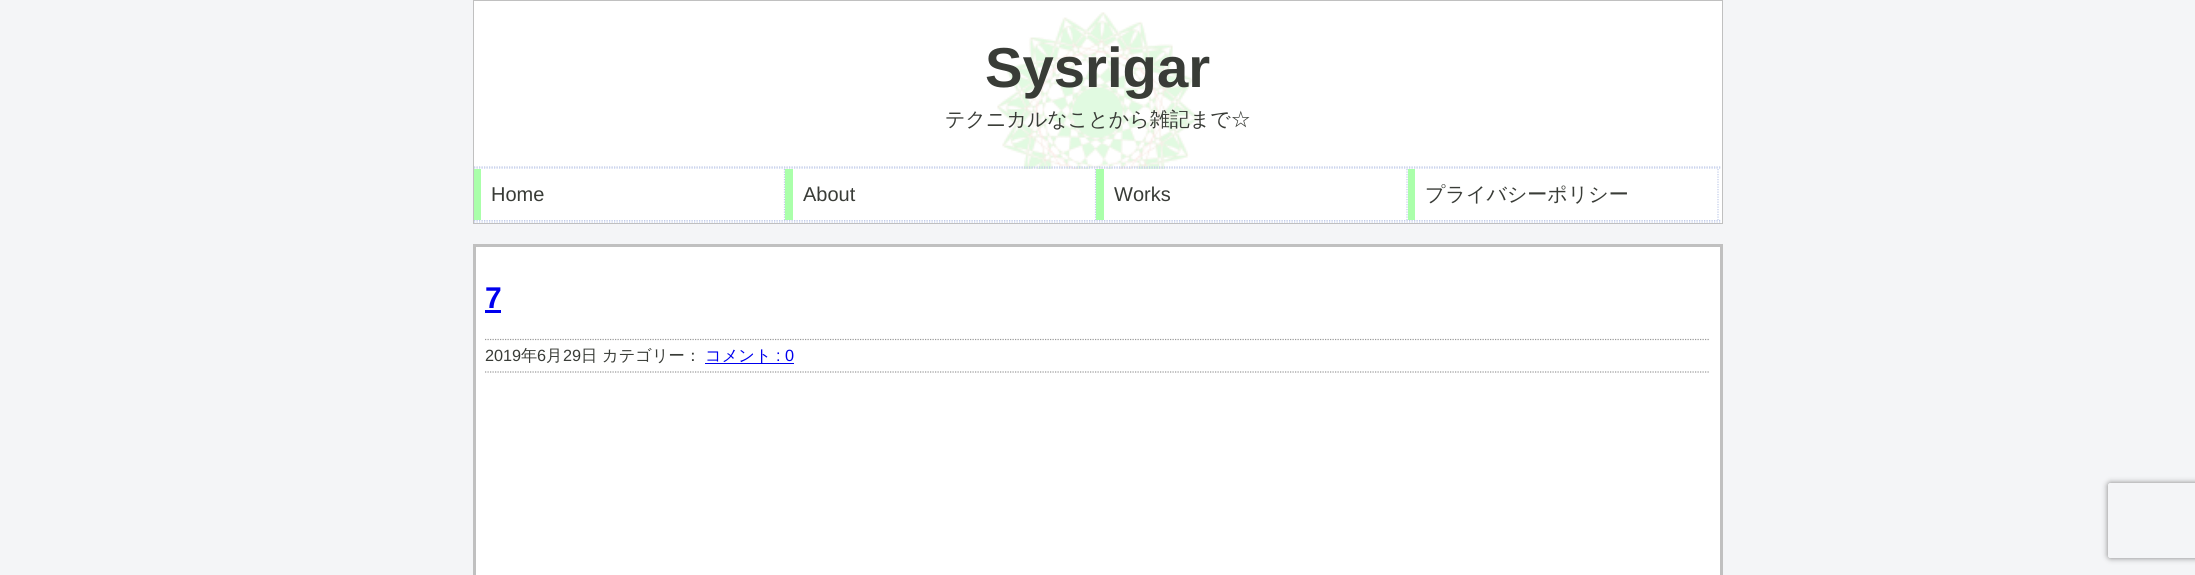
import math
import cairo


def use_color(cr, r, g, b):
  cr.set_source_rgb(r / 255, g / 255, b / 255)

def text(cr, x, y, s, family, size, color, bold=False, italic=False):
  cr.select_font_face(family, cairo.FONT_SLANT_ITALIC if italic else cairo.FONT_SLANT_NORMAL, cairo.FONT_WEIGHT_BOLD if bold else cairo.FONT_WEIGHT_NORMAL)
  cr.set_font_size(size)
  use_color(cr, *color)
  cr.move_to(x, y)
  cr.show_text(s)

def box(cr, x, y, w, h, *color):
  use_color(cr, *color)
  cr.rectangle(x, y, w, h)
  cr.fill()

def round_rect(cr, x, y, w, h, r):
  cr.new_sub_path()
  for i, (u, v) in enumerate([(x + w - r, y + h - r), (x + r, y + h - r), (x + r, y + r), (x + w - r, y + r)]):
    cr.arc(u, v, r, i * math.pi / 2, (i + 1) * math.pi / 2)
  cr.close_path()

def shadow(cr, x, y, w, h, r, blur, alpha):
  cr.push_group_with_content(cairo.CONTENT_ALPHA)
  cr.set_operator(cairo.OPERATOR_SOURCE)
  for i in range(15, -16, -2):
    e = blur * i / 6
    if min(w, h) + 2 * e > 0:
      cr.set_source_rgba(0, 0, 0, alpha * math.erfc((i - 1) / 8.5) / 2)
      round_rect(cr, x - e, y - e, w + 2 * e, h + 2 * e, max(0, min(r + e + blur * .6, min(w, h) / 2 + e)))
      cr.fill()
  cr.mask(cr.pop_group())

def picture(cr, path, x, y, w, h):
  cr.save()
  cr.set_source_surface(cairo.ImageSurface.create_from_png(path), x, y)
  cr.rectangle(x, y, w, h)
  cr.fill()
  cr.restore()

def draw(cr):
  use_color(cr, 244, 245, 247)
  cr.paint()
  box(cr, 474, 1, 1248, 222, 255, 255, 255)
  picture(cr, "img_01.png", 997, 12, 201, 157)
  cr.rectangle(473.5, 0.5, 1249, 223)
  use_color(cr, 192, 192, 192)
  cr.set_line_width(1)
  cr.stroke()
  cr.new_path()
  cr.move_to(474, 167)
  cr.line_to(1721, 167)
  use_color(cr, 192, 203, 233)
  cr.set_line_width(1.2)
  cr.set_dash([1.25, 1.25])
  cr.stroke()
  cr.new_path()
  cr.move_to(474, 222)
  cr.line_to(1721, 222)
  cr.stroke()
  cr.new_path()
  cr.move_to(474, 168)
  cr.line_to(1721, 168)
  cr.stroke()
  cr.new_path()
  cr.move_to(474, 220.5)
  cr.line_to(1721, 220.5)
  cr.stroke()
  box(cr, 481, 219, 304, 1, 255, 255, 255)
  cr.new_path()
  cr.move_to(784.5, 169)
  cr.line_to(784.5, 220)
  use_color(cr, 192, 203, 233)
  cr.stroke()
  box(cr, 474, 169, 7, 51, 170, 255, 170)
  box(cr, 794, 219, 301, 1, 255, 255, 255)
  cr.new_path()
  cr.move_to(1095.5, 169)
  cr.line_to(1095.5, 220)
  use_color(cr, 192, 203, 233)
  cr.stroke()
  box(cr, 785, 169, 8, 51, 170, 255, 170)
  box(cr, 1104, 219, 304, 1, 255, 255, 255)
  cr.new_path()
  cr.move_to(1407, 169)
  cr.line_to(1407, 220)
  use_color(cr, 192, 203, 233)
  cr.stroke()
  box(cr, 1096, 169, 8, 51, 170, 255, 170)
  box(cr, 1416, 219, 302, 1, 255, 255, 255)
  cr.new_path()
  cr.move_to(1718, 169)
  cr.line_to(1718, 220)
  use_color(cr, 192, 203, 233)
  cr.stroke()
  box(cr, 1408, 169, 7, 51, 170, 255, 170)
  use_color(cr, 255, 255, 255)
  cr.rectangle(474.5, 245.5, 1247, 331)
  cr.fill_preserve()
  use_color(cr, 192, 192, 192)
  cr.set_line_width(3)
  cr.set_dash([])
  cr.stroke()
  box(cr, 485, 310, 16, 3, 0, 0, 238)
  cr.new_path()
  cr.move_to(485, 339.5)
  cr.line_to(1710, 339.5)
  use_color(cr, 153, 153, 153)
  cr.set_line_width(1.2)
  cr.set_dash([1.25, 1.25])
  cr.stroke()
  cr.new_path()
  cr.move_to(485, 372)
  cr.line_to(1710, 372)
  cr.stroke()
  box(cr, 705, 363, 89, 1, 0, 0, 238)
  cr.save()
  cr.set_fill_rule(cairo.FILL_RULE_EVEN_ODD)
  cr.new_path()
  cr.move_to(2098, 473)
  cr.line_to(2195, 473)
  cr.line_to(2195, 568)
  cr.line_to(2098, 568)
  cr.close_path()
  cr.move_to(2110.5, 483)
  cr.line_to(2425.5, 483)
  cr.curve_to(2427, 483, 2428, 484, 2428, 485.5)
  cr.line_to(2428, 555.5)
  cr.curve_to(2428, 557, 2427, 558, 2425.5, 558)
  cr.line_to(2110.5, 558)
  cr.curve_to(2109, 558, 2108, 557, 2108, 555.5)
  cr.line_to(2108, 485.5)
  cr.curve_to(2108, 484, 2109, 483, 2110.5, 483)
  cr.close_path()
  cr.clip()
  use_color(cr, 128, 128, 128)
  shadow(cr, 2108, 483, 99, 75, 2.5, 3, 1)
  cr.restore()
  text(cr, 985, 87, "Sysrigar", "Liberation Sans", 56.25, (57, 60, 55), bold=True)
  text(cr, 945, 126, "テクニカルなことから雑記まで☆", "WenQuanYi Zen Hei Medium", 20, (57, 60, 55))
  text(cr, 491, 201, "Home", "Liberation Sans", 20, (57, 60, 55))
  text(cr, 803, 201, "About", "Liberation Sans", 20, (57, 60, 55))
  text(cr, 1114, 201, "Works", "Liberation Sans", 20, (57, 60, 55))
  text(cr, 1425, 201, "プライバシーポリシー", "WenQuanYi Zen Hei Medium", 20, (57, 60, 55))
  text(cr, 485, 308, "7", "Liberation Sans", 30, (0, 0, 238), bold=True)
  text(cr, 485, 361, "2019", "Liberation Sans", 16.25, (57, 60, 55))
  text(cr, 521, 361, "年", "WenQuanYi Zen Hei Medium", 16.25, (57, 60, 55))
  text(cr, 537, 361, "6", "Liberation Sans", 16.25, (57, 60, 55))
  text(cr, 546, 361, "月", "WenQuanYi Zen Hei Medium", 16.25, (57, 60, 55))
  text(cr, 563, 361, "29", "Liberation Sans", 16.25, (57, 60, 55))
  text(cr, 581, 361, "日", "WenQuanYi Zen Hei Medium", 16.25, (57, 60, 55))
  text(cr, 602, 361, "カテゴリー：", "WenQuanYi Zen Hei Medium", 16.25, (57, 60, 55))
  text(cr, 705, 361, "コメント", "WenQuanYi Zen Hei Medium", 16.25, (0, 0, 238))
  text(cr, 776, 361, ": 0", "Liberation Sans", 16.25, (0, 0, 238))


surface = cairo.ImageSurface(cairo.FORMAT_RGB24, 2195, 575)
cr = cairo.Context(surface)
options = cairo.FontOptions()
options.set_hint_metrics(cairo.HINT_METRICS_OFF)
options.set_hint_style(cairo.HINT_STYLE_NONE)
cr.set_font_options(options)
cr.set_miter_limit(4)
draw(cr)
surface.write_to_png("out.png")
